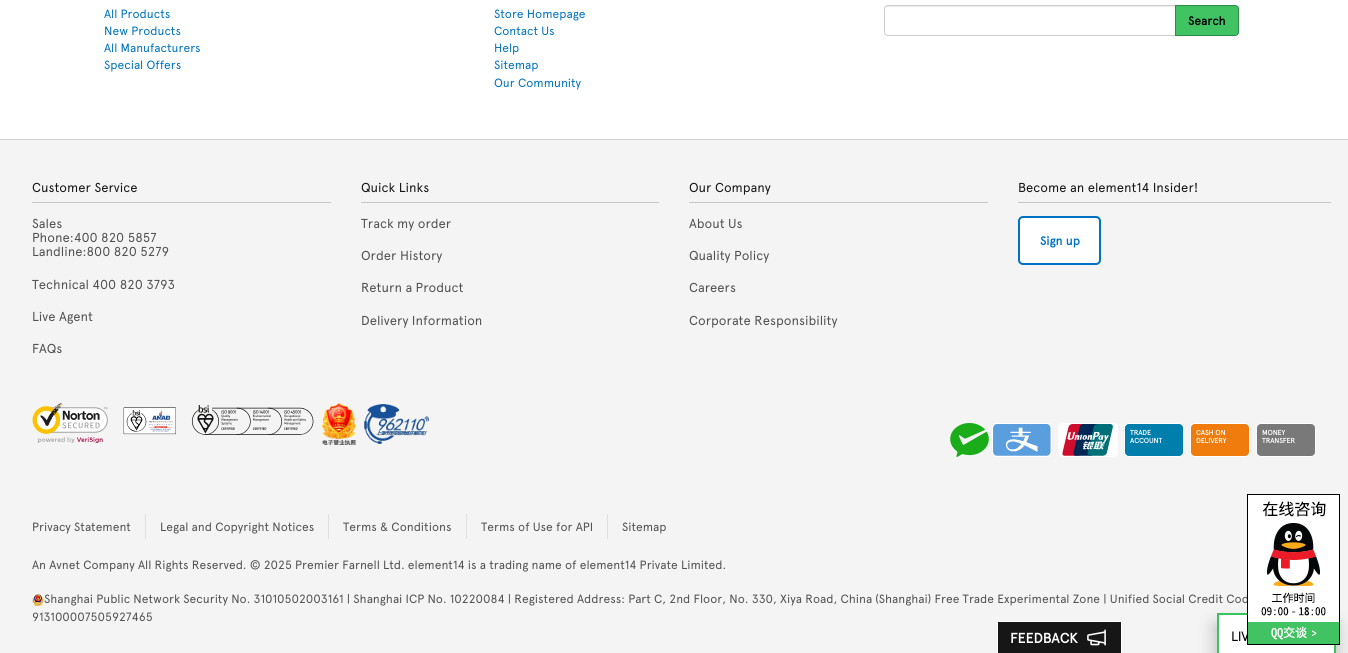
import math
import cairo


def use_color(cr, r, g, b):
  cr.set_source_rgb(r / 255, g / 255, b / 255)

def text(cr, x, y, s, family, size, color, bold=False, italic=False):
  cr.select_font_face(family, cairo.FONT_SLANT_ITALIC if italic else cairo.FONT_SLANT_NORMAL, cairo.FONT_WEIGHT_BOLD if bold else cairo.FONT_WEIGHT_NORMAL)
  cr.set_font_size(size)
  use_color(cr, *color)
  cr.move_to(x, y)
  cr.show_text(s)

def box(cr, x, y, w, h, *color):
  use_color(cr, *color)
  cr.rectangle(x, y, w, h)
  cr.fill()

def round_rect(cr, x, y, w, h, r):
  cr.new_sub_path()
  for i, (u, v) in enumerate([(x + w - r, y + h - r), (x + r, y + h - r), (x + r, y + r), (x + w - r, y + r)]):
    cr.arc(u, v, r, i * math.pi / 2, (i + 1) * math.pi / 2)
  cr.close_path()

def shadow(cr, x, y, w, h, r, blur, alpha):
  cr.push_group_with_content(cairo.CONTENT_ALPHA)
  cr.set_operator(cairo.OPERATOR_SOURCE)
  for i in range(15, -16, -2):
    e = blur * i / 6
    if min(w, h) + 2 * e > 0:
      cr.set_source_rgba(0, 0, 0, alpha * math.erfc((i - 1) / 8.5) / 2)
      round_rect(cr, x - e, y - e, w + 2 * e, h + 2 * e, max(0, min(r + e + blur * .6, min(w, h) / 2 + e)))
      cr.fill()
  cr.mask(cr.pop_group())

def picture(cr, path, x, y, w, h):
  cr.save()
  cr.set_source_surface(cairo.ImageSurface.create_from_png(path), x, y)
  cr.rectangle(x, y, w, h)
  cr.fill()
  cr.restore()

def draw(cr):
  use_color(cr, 255, 255, 255)
  cr.paint()
  use_color(cr, 236, 236, 236)
  cr.new_path()
  cr.move_to(888, 7)
  cr.line_to(1175, 7)
  cr.line_to(1175, 6)
  cr.line_to(888, 6)
  cr.curve_to(886, 6, 885, 8, 885, 10)
  cr.curve_to(885, 8, 886, 7, 888, 7)
  cr.close_path()
  cr.fill()
  cr.new_path()
  cr.move_to(888, 5.5)
  cr.line_to(1175.5, 5.5)
  cr.line_to(1175.5, 35.5)
  cr.line_to(888, 35.5)
  cr.curve_to(886, 35.5, 884.5, 34, 884.5, 32)
  cr.line_to(884.5, 9)
  cr.curve_to(884.5, 7, 886, 5.5, 888, 5.5)
  cr.close_path()
  use_color(cr, 204, 204, 204)
  cr.set_line_width(1)
  cr.stroke()
  use_color(cr, 65, 195, 99)
  cr.new_path()
  cr.move_to(1175.5, 5.5)
  cr.line_to(1235, 5.5)
  cr.curve_to(1237, 5.5, 1238.5, 7, 1238.5, 9)
  cr.line_to(1238.5, 32)
  cr.curve_to(1238.5, 34, 1237, 35.5, 1235, 35.5)
  cr.line_to(1175.5, 35.5)
  cr.close_path()
  cr.fill_preserve()
  use_color(cr, 44, 139, 69)
  cr.stroke()
  box(cr, 0, 140, 1348, 513, 244, 244, 244)
  box(cr, 0, 139, 1348, 1, 206, 206, 206)
  box(cr, 32, 202, 299, 1, 198, 198, 198)
  box(cr, 361, 202, 298, 1, 198, 198, 198)
  box(cr, 689, 202, 299, 1, 198, 198, 198)
  box(cr, 1018, 202, 313, 1, 198, 198, 198)
  use_color(cr, 255, 255, 255)
  round_rect(cr, 1019, 217, 81, 47, 4)
  cr.fill_preserve()
  use_color(cr, 0, 114, 195)
  cr.set_line_width(2)
  cr.stroke()
  picture(cr, "img_01.png", 32, 403, 282, 40)
  picture(cr, "img_02.png", 322, 403, 34, 42)
  picture(cr, "img_03.png", 364, 404, 65, 40)
  picture(cr, "img_04.png", 950, 423, 39, 34)
  picture(cr, "img_05.png", 992, 423, 60, 34)
  picture(cr, "img_06.png", 1058, 423, 60, 34)
  use_color(cr, 0, 126, 172)
  round_rect(cr, 1124.5, 423.5, 59, 33, 4.5)
  cr.fill_preserve()
  use_color(cr, 255, 255, 255)
  cr.set_line_width(1)
  cr.stroke()
  use_color(cr, 241, 124, 14)
  round_rect(cr, 1190.5, 423.5, 59, 33, 4.5)
  cr.fill_preserve()
  use_color(cr, 255, 255, 255)
  cr.stroke()
  use_color(cr, 121, 121, 121)
  round_rect(cr, 1256.5, 423.5, 59, 33, 4.5)
  cr.fill_preserve()
  use_color(cr, 255, 255, 255)
  cr.stroke()
  box(cr, 145, 514, 1, 25, 224, 224, 224)
  box(cr, 328, 514, 1, 25, 224, 224, 224)
  box(cr, 466, 514, 1, 25, 224, 224, 224)
  box(cr, 607, 514, 1, 25, 224, 224, 224)
  picture(cr, "img_07.png", 32, 594, 12, 12)
  box(cr, 998, 622, 123, 31, 22, 22, 22)
  box(cr, 997, 621, 125, 1, 255, 255, 255)
  box(cr, 1121, 621, 1, 32, 255, 255, 255)
  box(cr, 997, 621, 1, 32, 255, 255, 255)
  picture(cr, "img_08.png", 1087, 629, 19, 17)
  use_color(cr, 0, 0, 0)
  shadow(cr, 1214, 624, 125, 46, 0, 8, 0.21)
  box(cr, 1219, 615, 115, 38, 255, 255, 255)
  box(cr, 1217, 613, 30, 2, 57, 196, 94)
  box(cr, 1334, 645, 2, 8, 57, 196, 94)
  box(cr, 1217, 613, 2, 40, 57, 196, 94)
  text(cr, 104, 18, "All Products", "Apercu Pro", 12, (0, 114, 195))
  text(cr, 104, 35, "New Products", "Apercu Pro", 12, (0, 114, 195))
  text(cr, 104, 52, "All Manufacturers", "Apercu Pro", 12, (0, 114, 195))
  text(cr, 104, 69, "Special Offers", "Apercu Pro", 12, (0, 114, 195))
  text(cr, 494, 18, "Store Homepage", "Apercu Pro", 12, (0, 114, 195))
  text(cr, 494, 35, "Contact Us", "Apercu Pro", 12, (0, 114, 195))
  text(cr, 494, 52, "Help", "Apercu Pro", 12, (0, 114, 195))
  text(cr, 494, 69, "Sitemap", "Apercu Pro", 12, (0, 114, 195))
  text(cr, 494, 87, "Our Community", "Apercu Pro", 12, (0, 114, 195))
  text(cr, 1188, 25, "Search", "Apercu Pro", 12, (0, 0, 0), bold=True)
  text(cr, 32, 192, "Customer Service", "Apercu Pro", 13, (22, 22, 22))
  text(cr, 32, 228, "Sales", "Apercu Pro", 13, (82, 82, 82))
  text(cr, 32, 242, "Phone:400 820 5857", "Apercu Pro", 13, (82, 82, 82))
  text(cr, 32, 256, "Landline:800 820 5279", "Apercu Pro", 13, (82, 82, 82))
  text(cr, 32, 289, "Technical 400 820 3793", "Apercu Pro", 13, (82, 82, 82))
  text(cr, 32, 321, "Live Agent", "Apercu Pro", 13, (82, 82, 82))
  text(cr, 32, 353, "FAQs", "Apercu Pro", 13, (82, 82, 82))
  text(cr, 361, 192, "Quick Links", "Apercu Pro", 13, (22, 22, 22))
  text(cr, 361, 228, "Track my order", "Apercu Pro", 13, (82, 82, 82))
  text(cr, 361, 260, "Order History", "Apercu Pro", 13, (82, 82, 82))
  text(cr, 361, 292, "Return a Product", "Apercu Pro", 13, (82, 82, 82))
  text(cr, 361, 325, "Delivery Information", "Apercu Pro", 13, (82, 82, 82))
  text(cr, 689, 192, "Our Company", "Apercu Pro", 13, (22, 22, 22))
  text(cr, 689, 228, "About Us", "Apercu Pro", 13, (82, 82, 82))
  text(cr, 689, 260, "Quality Policy", "Apercu Pro", 13, (82, 82, 82))
  text(cr, 689, 292, "Careers", "Apercu Pro", 13, (82, 82, 82))
  text(cr, 689, 325, "Corporate Responsibility", "Apercu Pro", 13, (82, 82, 82))
  text(cr, 1018, 192, "Become an element14 Insider!", "Apercu Pro", 13, (22, 22, 22))
  text(cr, 1040, 245, "Sign up", "Apercu Pro", 12, (0, 114, 195), bold=True)
  text(cr, 1130, 435, "TRADE", "Apercu Pro", 7, (255, 255, 255), bold=True)
  text(cr, 1130, 443, "ACCOUNT", "Apercu Pro", 7, (255, 255, 255), bold=True)
  text(cr, 1196, 435, "CASH ON", "Apercu Pro", 7, (255, 255, 255), bold=True)
  text(cr, 1196, 443, "DELIVERY", "Apercu Pro", 7, (255, 255, 255), bold=True)
  text(cr, 1262, 435, "MONEY", "Apercu Pro", 7, (255, 255, 255), bold=True)
  text(cr, 1262, 443, "TRANSFER", "Apercu Pro", 7, (255, 255, 255), bold=True)
  text(cr, 32, 531, "Privacy Statement", "Apercu Pro", 12, (82, 82, 82))
  text(cr, 160, 531, "Legal and Copyright Notices", "Apercu Pro", 12, (82, 82, 82))
  text(cr, 343, 531, "Terms & Conditions", "Apercu Pro", 12, (82, 82, 82))
  text(cr, 481, 531, "Terms of Use for API", "Apercu Pro", 12, (82, 82, 82))
  text(cr, 622, 531, "Sitemap", "Apercu Pro", 12, (82, 82, 82))
  text(cr, 32, 569, "An Avnet Company All Rights Reserved. © 2025 Premier Farnell Ltd. element14 is a trading name of element14 Private Limited.", "Apercu Pro", 12, (82, 82, 82))
  text(cr, 44, 603, "Shanghai Public Network Security No. 31010502003161 | Shanghai ICP No. 10220084 | Registered Address: Part C, 2nd Floor, No. 330, Xiya Road, China (Shanghai) Free Trade Experimental Zone | Unified Social Credit Cod", "Apercu Pro", 12, (82, 82, 82))
  text(cr, 32, 621, "913100007505927465", "Apercu Pro", 12, (82, 82, 82))
  text(cr, 1010, 643, "FEEDBACK", "Apercu Pro", 14, (255, 255, 255), bold=True)
  text(cr, 1231, 641, "LIV", "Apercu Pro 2", 13, (0, 0, 0), bold=True)
  picture(cr, "img_09.png", 1247, 494, 93, 151)


surface = cairo.ImageSurface(cairo.FORMAT_RGB24, 1348, 653)
cr = cairo.Context(surface)
options = cairo.FontOptions()
options.set_hint_metrics(cairo.HINT_METRICS_OFF)
options.set_hint_style(cairo.HINT_STYLE_NONE)
cr.set_font_options(options)
cr.set_miter_limit(4)
draw(cr)
surface.write_to_png("out.png")
